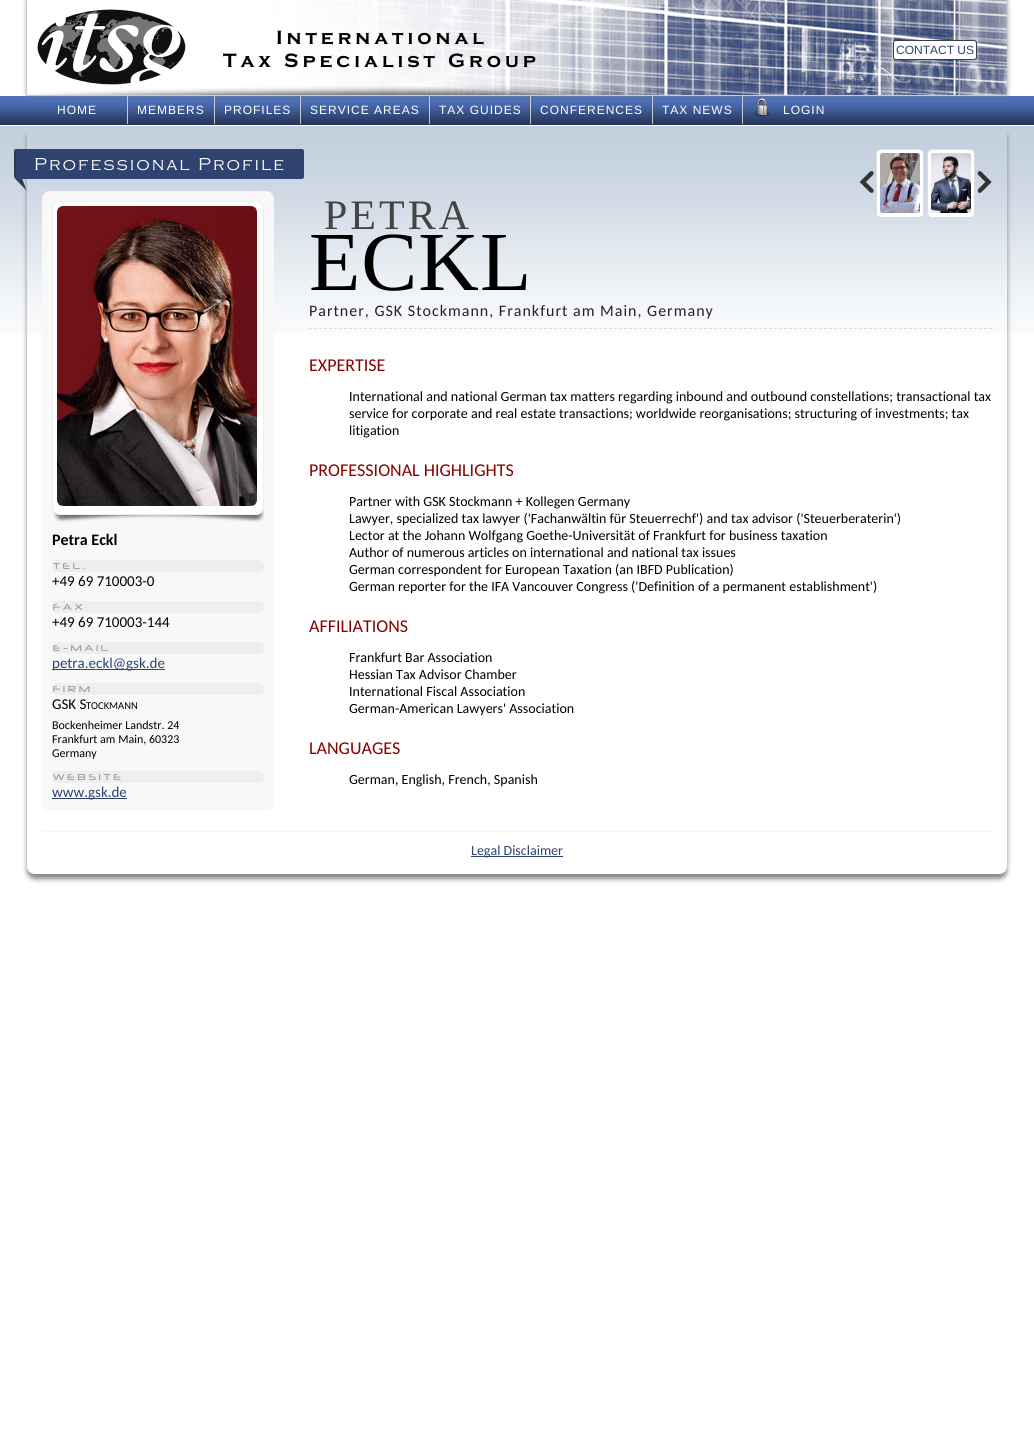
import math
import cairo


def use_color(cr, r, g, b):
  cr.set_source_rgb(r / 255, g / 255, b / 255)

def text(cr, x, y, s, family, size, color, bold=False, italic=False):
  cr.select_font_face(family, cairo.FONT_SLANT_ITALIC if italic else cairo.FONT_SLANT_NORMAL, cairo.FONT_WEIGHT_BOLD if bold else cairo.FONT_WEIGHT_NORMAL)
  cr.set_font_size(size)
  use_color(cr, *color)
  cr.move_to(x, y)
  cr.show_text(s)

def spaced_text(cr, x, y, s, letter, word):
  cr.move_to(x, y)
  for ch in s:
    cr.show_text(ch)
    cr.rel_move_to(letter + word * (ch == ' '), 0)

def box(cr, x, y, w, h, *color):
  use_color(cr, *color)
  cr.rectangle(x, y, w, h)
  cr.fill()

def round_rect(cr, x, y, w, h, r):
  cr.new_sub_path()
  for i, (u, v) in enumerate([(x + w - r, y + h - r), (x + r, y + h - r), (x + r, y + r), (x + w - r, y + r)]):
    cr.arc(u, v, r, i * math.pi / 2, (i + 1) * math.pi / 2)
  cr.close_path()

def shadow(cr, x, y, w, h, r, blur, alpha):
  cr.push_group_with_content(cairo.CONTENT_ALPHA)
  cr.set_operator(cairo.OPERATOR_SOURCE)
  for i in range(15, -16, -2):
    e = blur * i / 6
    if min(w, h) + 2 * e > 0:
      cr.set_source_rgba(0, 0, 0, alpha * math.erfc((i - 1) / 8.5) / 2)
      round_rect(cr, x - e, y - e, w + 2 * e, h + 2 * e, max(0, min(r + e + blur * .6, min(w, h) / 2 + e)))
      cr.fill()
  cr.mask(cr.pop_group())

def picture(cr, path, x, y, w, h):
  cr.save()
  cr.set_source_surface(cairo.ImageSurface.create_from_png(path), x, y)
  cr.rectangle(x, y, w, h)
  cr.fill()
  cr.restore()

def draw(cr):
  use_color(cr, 255, 255, 255)
  cr.paint()
  picture(cr, "img_03.png", 0, 96, 1034, 29)
  use_color(cr, 136, 136, 136)
  shadow(cr, 27, 0, 980, 95, 0, 2.5, 1)
  picture(cr, "img_01.png", 27, 0, 980, 95)
  picture(cr, "img_02.png", 37, 9, 149, 76)
  use_color(cr, 255, 255, 255)
  round_rect(cr, 893.5, 40.5, 83, 19, 2.5)
  cr.fill_preserve()
  use_color(cr, 58, 62, 75)
  cr.set_line_width(1)
  cr.stroke()
  picture(cr, "img_05.png", 0, 126, 1034, 209)
  cr.save()
  cr.set_fill_rule(cairo.FILL_RULE_EVEN_ODD)
  cr.new_path()
  cr.move_to(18, 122)
  cr.line_to(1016, 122)
  cr.line_to(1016, 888)
  cr.line_to(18, 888)
  cr.close_path()
  cr.move_to(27, 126)
  cr.line_to(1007, 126)
  cr.line_to(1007, 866)
  cr.curve_to(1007, 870.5, 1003.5, 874, 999, 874)
  cr.line_to(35, 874)
  cr.curve_to(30.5, 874, 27, 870.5, 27, 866)
  cr.close_path()
  cr.clip()
  use_color(cr, 136, 136, 136)
  shadow(cr, 27, 131, 980, 748, 8, 2.5, 1)
  cr.restore()
  box(cr, 127, 96, 1, 28, 204, 204, 204)
  box(cr, 214, 96, 1, 28, 204, 204, 204)
  box(cr, 300, 96, 1, 28, 204, 204, 204)
  box(cr, 429, 96, 1, 28, 204, 204, 204)
  box(cr, 530, 96, 1, 28, 204, 204, 204)
  box(cr, 652, 96, 1, 28, 204, 204, 204)
  box(cr, 742, 96, 1, 28, 204, 204, 204)
  picture(cr, "img_04.png", 753, 98, 18, 19)
  picture(cr, "img_06.png", 14, 149, 13, 41)
  use_color(cr, 46, 67, 111)
  cr.new_path()
  cr.move_to(16, 149)
  cr.line_to(302, 149)
  cr.curve_to(303, 149, 304, 150, 304, 151)
  cr.line_to(304, 177)
  cr.curve_to(304, 178, 303, 179, 302, 179)
  cr.line_to(16, 179)
  cr.close_path()
  cr.fill()
  use_color(cr, 248, 248, 248)
  round_rect(cr, 42, 191, 232, 620, 8)
  cr.fill()
  picture(cr, "img_07.png", 53, 507, 211, 16)
  use_color(cr, 255, 255, 255)
  round_rect(cr, 52.5, 201.5, 211, 313, 7.5)
  cr.fill_preserve()
  use_color(cr, 238, 238, 238)
  cr.stroke()
  picture(cr, "img_08.png", 57, 206, 200, 300)
  round_rect(cr, 52, 560, 212, 12, 5)
  cr.fill()
  round_rect(cr, 52, 601, 212, 12, 5)
  cr.fill()
  round_rect(cr, 52, 642, 212, 12, 5)
  cr.fill()
  box(cr, 52, 669, 113, 1, 46, 67, 111)
  use_color(cr, 238, 238, 238)
  round_rect(cr, 52, 683, 212, 12, 5)
  cr.fill()
  round_rect(cr, 52, 771, 212, 12, 5)
  cr.fill()
  box(cr, 52, 798, 75, 1, 46, 67, 111)
  picture(cr, "img_09.png", 859, 171, 15, 22)
  use_color(cr, 255, 255, 255)
  round_rect(cr, 876.5, 149.5, 47, 68, 4.5)
  cr.fill_preserve()
  use_color(cr, 221, 221, 221)
  cr.stroke()
  picture(cr, "img_10.png", 880, 153, 40, 60)
  use_color(cr, 255, 255, 255)
  round_rect(cr, 927.5, 149.5, 47, 68, 4.5)
  cr.fill_preserve()
  use_color(cr, 221, 221, 221)
  cr.stroke()
  picture(cr, "img_11.png", 931, 153, 40, 60)
  picture(cr, "img_12.png", 977, 171, 15, 22)
  cr.new_path()
  cr.move_to(309, 328.5)
  cr.line_to(992, 328.5)
  cr.set_dash([3, 2])
  cr.stroke()
  box(cr, 42, 831, 950, 1, 245, 245, 245)
  box(cr, 471, 856, 92, 1, 46, 67, 111)
  cr.select_font_face("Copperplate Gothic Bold", cairo.FONT_SLANT_NORMAL, cairo.FONT_WEIGHT_BOLD)
  cr.set_font_size(20)
  use_color(cr, 0, 0, 0)
  spaced_text(cr, 276, 44, "International", 4, 0)
  spaced_text(cr, 223, 67, "Tax Specialist Group", 4, 0)
  text(cr, 896, 54, "CONTACT US", "Liberation Sans", 12, (46, 67, 111))
  use_color(cr, 255, 255, 255)
  spaced_text(cr, 57, 114, "HOME", 1, 0)
  spaced_text(cr, 137, 114, "MEMBERS", 1, 0)
  spaced_text(cr, 224, 114, "PROFILES", 1, 0)
  spaced_text(cr, 310, 114, "SERVICE AREAS", 1, 0)
  spaced_text(cr, 439, 114, "TAX GUIDES", 1, 0)
  spaced_text(cr, 540, 114, "CONFERENCES", 1, 0)
  spaced_text(cr, 662, 114, "TAX NEWS", 1, 0)
  spaced_text(cr, 783, 114, "LOGIN", 1, 0)
  cr.select_font_face("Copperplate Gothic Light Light")
  cr.set_font_size(18)
  spaced_text(cr, 34, 170, "Professional Profile", 2, 0)
  text(cr, 52, 545, "Petra Eckl", "Carlito", 16, (0, 0, 0), bold=True)
  cr.select_font_face("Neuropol")
  cr.set_font_size(10)
  use_color(cr, 153, 153, 153)
  spaced_text(cr, 53, 569, "TEL.", 3, 0)
  text(cr, 52, 586, "+49 69 710003-0", "Carlito", 15, (0, 0, 0))
  cr.select_font_face("Neuropol")
  cr.set_font_size(10)
  use_color(cr, 153, 153, 153)
  spaced_text(cr, 53, 610, "FAX", 3, 0)
  text(cr, 52, 627, "+49 69 710003-144", "Carlito", 15, (0, 0, 0))
  cr.select_font_face("Neuropol")
  cr.set_font_size(10)
  use_color(cr, 153, 153, 153)
  spaced_text(cr, 53, 651, "E-MAIL", 3, 0)
  text(cr, 52, 668, "petra.eckl@gsk.de", "Carlito", 15, (46, 67, 111))
  cr.select_font_face("Neuropol")
  cr.set_font_size(10)
  use_color(cr, 153, 153, 153)
  spaced_text(cr, 53, 692, "FIRM", 3, 0)
  text(cr, 52, 709, "GSK S", "Carlito", 15, (0, 0, 0))
  text(cr, 86, 709, "TOCKMANN", "Carlito", 10.5, (0, 0, 0))
  text(cr, 52, 729, "Bockenheimer Landstr. 24", "Carlito", 12, (0, 0, 0))
  text(cr, 52, 743, "Frankfurt am Main, 60323", "Carlito", 12, (0, 0, 0))
  text(cr, 52, 757, "Germany", "Carlito", 12, (0, 0, 0))
  cr.select_font_face("Neuropol")
  cr.set_font_size(10)
  use_color(cr, 153, 153, 153)
  spaced_text(cr, 53, 780, "WEBSITE", 3, 0)
  text(cr, 52, 797, "www.gsk.de", "Carlito", 15, (46, 67, 111))
  cr.select_font_face("Liberation Serif")
  cr.set_font_size(42)
  use_color(cr, 68, 68, 68)
  spaced_text(cr, 324, 229, "PETRA", 3, 0)
  cr.set_font_size(84)
  use_color(cr, 0, 0, 0)
  spaced_text(cr, 309, 290, "ECKL", 1, 0)
  cr.select_font_face("Carlito")
  cr.set_font_size(16)
  use_color(cr, 34, 34, 34)
  spaced_text(cr, 309, 316, "Partner, GSK Stockmann, Frankfurt am Main, Germany", 1, 0)
  text(cr, 309, 371, "EXPERTISE", "Carlito", 18, (136, 0, 0))
  text(cr, 349, 401, "International and national German tax matters regarding inbound and outbound constellations; transactional tax", "Carlito", 14, (0, 0, 0))
  text(cr, 349, 418, "service for corporate and real estate transactions; worldwide reorganisations; structuring of investments; tax", "Carlito", 14, (0, 0, 0))
  text(cr, 349, 435, "litigation", "Carlito", 14, (0, 0, 0))
  text(cr, 309, 476, "PROFESSIONAL HIGHLIGHTS", "Carlito", 18, (136, 0, 0))
  text(cr, 349, 506, "Partner with GSK Stockmann + Kollegen Germany", "Carlito", 14, (0, 0, 0))
  text(cr, 349, 523, "Lawyer, specialized tax lawyer ('Fachanwältin für Steuerrechf') and tax advisor ('Steuerberaterin')", "Carlito", 14, (0, 0, 0))
  text(cr, 349, 540, "Lector at the Johann Wolfgang Goethe-Universität of Frankfurt for business taxation", "Carlito", 14, (0, 0, 0))
  text(cr, 349, 557, "Author of numerous articles on international and national tax issues", "Carlito", 14, (0, 0, 0))
  text(cr, 349, 574, "German correspondent for European Taxation (an IBFD Publication)", "Carlito", 14, (0, 0, 0))
  text(cr, 349, 591, "German reporter for the IFA Vancouver Congress ('Definition of a permanent establishment')", "Carlito", 14, (0, 0, 0))
  text(cr, 309, 632, "AFFILIATIONS", "Carlito", 18, (136, 0, 0))
  text(cr, 349, 662, "Frankfurt Bar Association", "Carlito", 14, (0, 0, 0))
  text(cr, 349, 679, "Hessian Tax Advisor Chamber", "Carlito", 14, (0, 0, 0))
  text(cr, 349, 696, "International Fiscal Association", "Carlito", 14, (0, 0, 0))
  text(cr, 349, 713, "German-American Lawyers' Association", "Carlito", 14, (0, 0, 0))
  text(cr, 309, 754, "LANGUAGES", "Carlito", 18, (136, 0, 0))
  text(cr, 349, 784, "German, English, French, Spanish", "Carlito", 14, (0, 0, 0))
  text(cr, 471, 855, "Legal Disclaimer", "Carlito", 14, (46, 67, 111))


surface = cairo.ImageSurface(cairo.FORMAT_RGB24, 1034, 1439)
cr = cairo.Context(surface)
options = cairo.FontOptions()
options.set_hint_metrics(cairo.HINT_METRICS_OFF)
options.set_hint_style(cairo.HINT_STYLE_NONE)
cr.set_font_options(options)
cr.set_miter_limit(4)
draw(cr)
surface.write_to_png("out.png")
